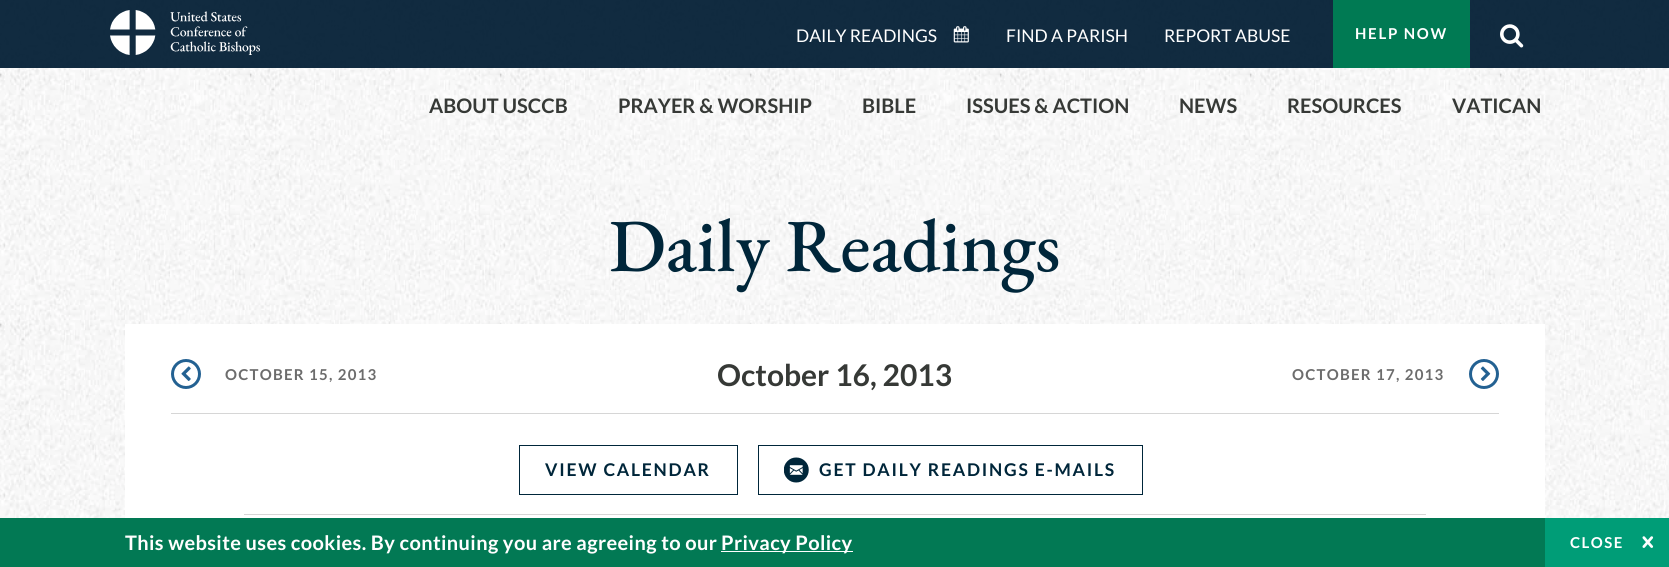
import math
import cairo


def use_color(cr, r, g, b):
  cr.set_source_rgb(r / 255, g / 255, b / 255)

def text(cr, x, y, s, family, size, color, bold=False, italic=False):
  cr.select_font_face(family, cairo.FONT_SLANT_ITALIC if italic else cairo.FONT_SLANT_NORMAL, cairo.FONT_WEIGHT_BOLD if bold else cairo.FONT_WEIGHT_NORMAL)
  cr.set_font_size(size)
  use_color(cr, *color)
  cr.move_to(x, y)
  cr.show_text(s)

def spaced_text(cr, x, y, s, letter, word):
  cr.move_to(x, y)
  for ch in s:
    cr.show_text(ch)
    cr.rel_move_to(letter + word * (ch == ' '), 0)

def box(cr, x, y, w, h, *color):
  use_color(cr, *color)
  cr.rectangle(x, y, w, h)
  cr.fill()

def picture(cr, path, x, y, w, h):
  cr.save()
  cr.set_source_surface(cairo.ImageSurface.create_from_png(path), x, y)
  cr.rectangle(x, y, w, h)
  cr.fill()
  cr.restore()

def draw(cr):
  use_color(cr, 255, 255, 255)
  cr.paint()
  picture(cr, "img_01.png", 0, 0, 1669, 518)
  cr.set_source_rgba(0.024, 0.129, 0.216, 0.95)
  cr.rectangle(0, 0, 1669, 68)
  cr.fill()
  picture(cr, "img_02.png", 110, 10, 150, 45)
  picture(cr, "img_03.png", 953, 26, 16, 17)
  box(cr, 1333, 0, 137, 68, 0, 122, 83)
  picture(cr, "img_04.png", 1500, 24, 24, 24)
  box(cr, 125, 324, 1420, 194, 255, 255, 255)
  box(cr, 171, 413, 1328, 1, 214, 214, 214)
  cr.arc(186, 374, 13.5, 0, 2 * math.pi)
  use_color(cr, 35, 97, 146)
  cr.set_line_width(3)
  cr.stroke()
  picture(cr, "img_05.png", 181, 366, 10, 15)
  cr.arc(1484, 374, 13.5, 0, 2 * math.pi)
  cr.stroke()
  picture(cr, "img_06.png", 1480, 366, 11, 15)
  box(cr, 244, 514, 1182, 1, 214, 214, 214)
  cr.rectangle(519.5, 445.5, 218, 49)
  use_color(cr, 0, 38, 58)
  cr.set_line_width(1)
  cr.stroke()
  cr.rectangle(758.5, 445.5, 384, 49)
  cr.stroke()
  picture(cr, "img_07.png", 784, 457, 25, 26)
  box(cr, 0, 518, 1545, 49, 2, 121, 84)
  box(cr, 721, 551, 132, 1, 255, 255, 255)
  box(cr, 1545, 518, 124, 49, 0, 157, 119)
  picture(cr, "img_08.png", 1642, 536, 12, 12)
  text(cr, 796, 42, "DAILY READINGS", "Lato", 17.5, (255, 255, 255))
  text(cr, 1006, 42, "FIND A PARISH", "Lato", 17.5, (255, 255, 255))
  text(cr, 1164, 42, "REPORT ABUSE", "Lato", 17.5, (255, 255, 255))
  cr.select_font_face("Lato", cairo.FONT_SLANT_NORMAL, cairo.FONT_WEIGHT_BOLD)
  cr.set_font_size(15)
  spaced_text(cr, 1355, 39, "HELP NOW", 1.75, 0)
  text(cr, 429, 113, "ABOUT USCCB", "Lato", 20, (54, 57, 54), bold=True)
  text(cr, 618, 113, "PRAYER & WORSHIP", "Lato", 20, (54, 57, 54), bold=True)
  text(cr, 862, 113, "BIBLE", "Lato", 20, (54, 57, 54), bold=True)
  text(cr, 966, 113, "ISSUES & ACTION", "Lato", 20, (54, 57, 54), bold=True)
  text(cr, 1179, 113, "NEWS", "Lato", 20, (54, 57, 54), bold=True)
  text(cr, 1287, 113, "RESOURCES", "Lato", 20, (54, 57, 54), bold=True)
  text(cr, 1452, 113, "VATICAN", "Lato", 20, (54, 57, 54), bold=True)
  text(cr, 609, 271, "Daily Readings", "EB Garamond Medium", 75, (0, 38, 58))
  cr.select_font_face("Lato", cairo.FONT_SLANT_NORMAL, cairo.FONT_WEIGHT_BOLD)
  cr.set_font_size(15)
  use_color(cr, 108, 108, 108)
  spaced_text(cr, 225, 380, "OCTOBER 15, 2013", 1.25, 0)
  text(cr, 717, 386, "October 16, 2013", "Lato", 30, (54, 57, 54), bold=True)
  cr.set_font_size(15)
  use_color(cr, 108, 108, 108)
  spaced_text(cr, 1292, 380, "OCTOBER 17, 2013", 1.25, 0)
  cr.set_font_size(17.5)
  use_color(cr, 0, 38, 58)
  spaced_text(cr, 545, 476, "VIEW CALENDAR", 1.75, 0)
  spaced_text(cr, 819, 476, "GET DAILY READINGS E-MAILS", 1.75, 0)
  cr.set_font_size(20)
  use_color(cr, 255, 255, 255)
  spaced_text(cr, 125, 550, "This website uses cookies. By continuing you are agreeing to our", 0.38, 0)
  spaced_text(cr, 721, 550, "Privacy Policy", 0.38, 0)
  cr.set_font_size(15)
  spaced_text(cr, 1570, 548, "CLOSE", 1.5, 0)


surface = cairo.ImageSurface(cairo.FORMAT_RGB24, 1669, 567)
cr = cairo.Context(surface)
options = cairo.FontOptions()
options.set_hint_metrics(cairo.HINT_METRICS_OFF)
options.set_hint_style(cairo.HINT_STYLE_NONE)
cr.set_font_options(options)
cr.set_miter_limit(4)
draw(cr)
surface.write_to_png("out.png")
